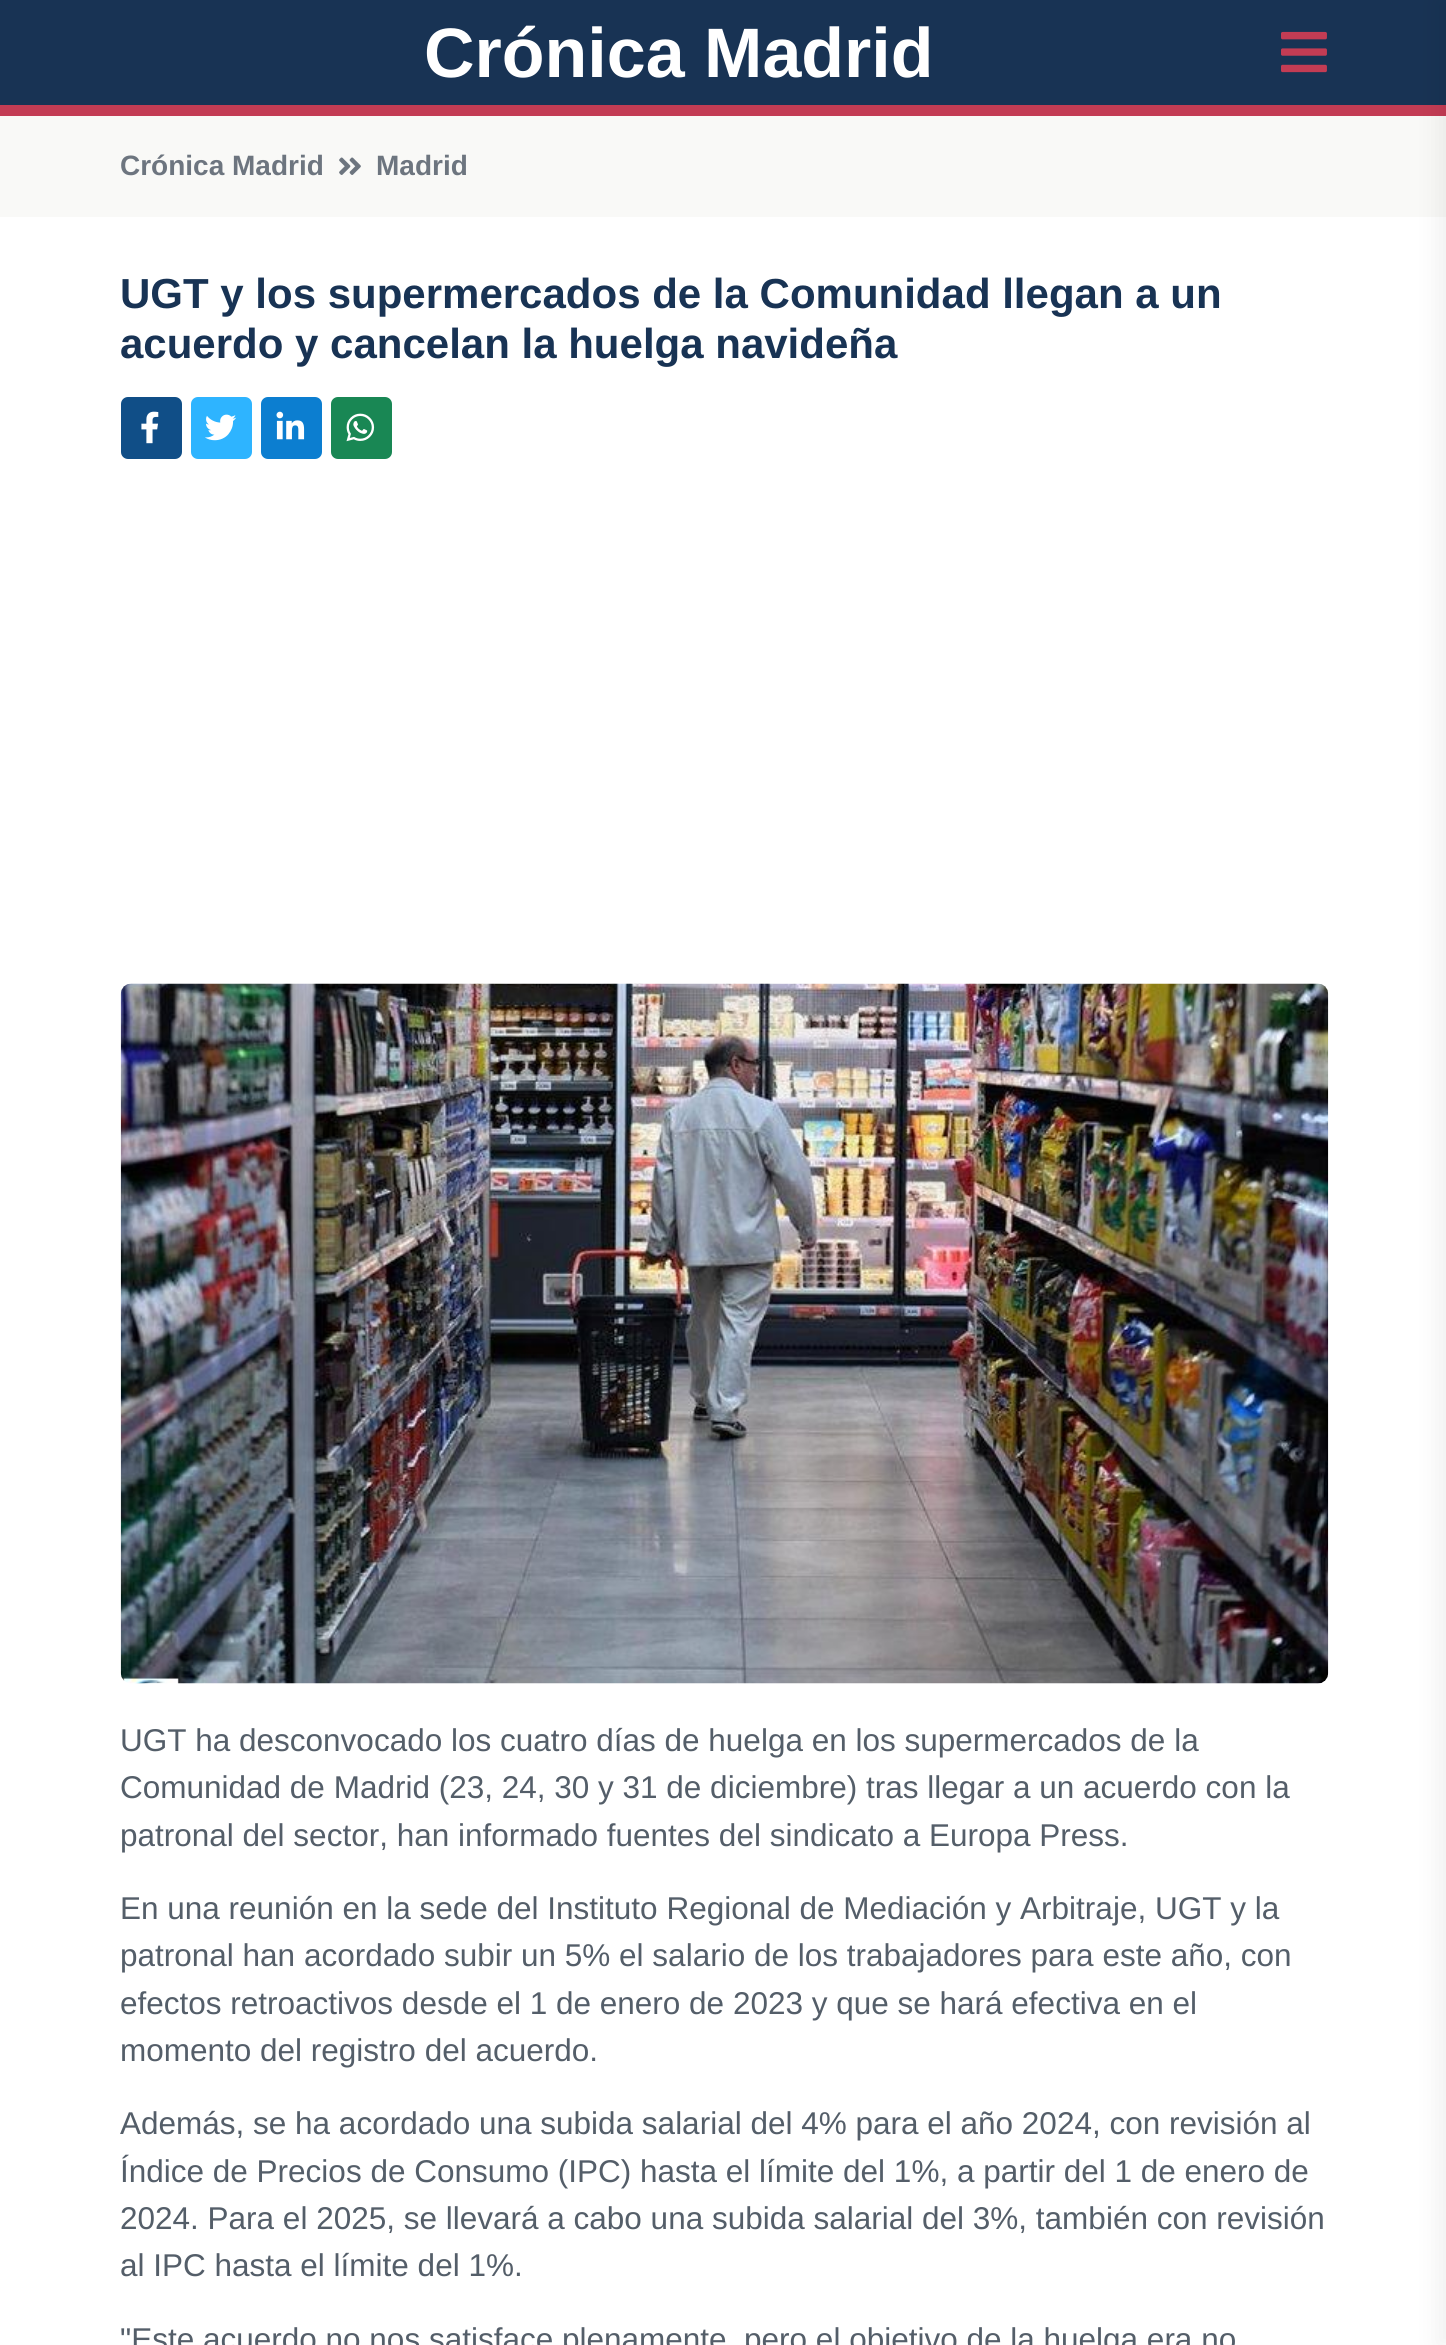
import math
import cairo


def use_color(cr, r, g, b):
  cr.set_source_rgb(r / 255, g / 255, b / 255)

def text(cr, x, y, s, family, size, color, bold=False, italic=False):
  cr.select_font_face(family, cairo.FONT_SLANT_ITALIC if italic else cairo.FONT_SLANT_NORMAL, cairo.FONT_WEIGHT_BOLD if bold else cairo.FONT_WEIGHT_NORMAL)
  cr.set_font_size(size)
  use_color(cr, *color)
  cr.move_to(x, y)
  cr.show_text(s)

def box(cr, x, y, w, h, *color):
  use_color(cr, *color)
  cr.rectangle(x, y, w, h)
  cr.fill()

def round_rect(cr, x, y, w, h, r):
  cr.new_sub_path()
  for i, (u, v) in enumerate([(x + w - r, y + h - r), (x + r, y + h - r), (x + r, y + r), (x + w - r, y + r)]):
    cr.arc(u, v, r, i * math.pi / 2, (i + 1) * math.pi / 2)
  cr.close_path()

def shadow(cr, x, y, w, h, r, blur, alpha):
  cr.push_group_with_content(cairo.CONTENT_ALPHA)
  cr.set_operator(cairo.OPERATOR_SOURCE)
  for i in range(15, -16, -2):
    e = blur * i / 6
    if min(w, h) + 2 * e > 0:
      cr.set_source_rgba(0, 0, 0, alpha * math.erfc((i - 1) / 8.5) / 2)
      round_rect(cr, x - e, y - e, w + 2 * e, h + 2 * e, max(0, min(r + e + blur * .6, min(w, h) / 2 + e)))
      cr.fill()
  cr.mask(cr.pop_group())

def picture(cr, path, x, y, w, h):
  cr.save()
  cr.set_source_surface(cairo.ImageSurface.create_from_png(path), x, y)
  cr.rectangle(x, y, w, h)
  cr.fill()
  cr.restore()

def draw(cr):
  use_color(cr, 255, 255, 255)
  cr.paint()
  box(cr, 0, 0, 1446, 105, 24, 51, 84)
  box(cr, 0, 105, 1446, 11, 195, 60, 84)
  picture(cr, "img_01.png", 1281, 31, 46, 42)
  box(cr, 0, 116, 1446, 101, 249, 249, 247)
  use_color(cr, 0, 0, 0)
  shadow(cr, 1437, 0, 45, 2345, 0, 12, 0.06)
  picture(cr, "img_02.png", 339, 157, 22, 18)
  use_color(cr, 16, 78, 135)
  round_rect(cr, 121, 397, 61, 62, 7)
  cr.fill()
  picture(cr, "img_03.png", 141, 411, 18, 33)
  use_color(cr, 46, 180, 255)
  round_rect(cr, 191, 397, 61, 62, 7)
  cr.fill()
  picture(cr, "img_04.png", 205, 414, 32, 27)
  use_color(cr, 12, 126, 208)
  round_rect(cr, 261, 397, 61, 62, 7)
  cr.fill()
  picture(cr, "img_05.png", 276, 411, 29, 29)
  use_color(cr, 25, 135, 84)
  round_rect(cr, 331, 397, 61, 62, 7)
  cr.fill()
  picture(cr, "img_06.png", 346, 413, 29, 29)
  picture(cr, "img_07.png", 120, 983, 1209, 701)
  text(cr, 424, 77, "Crónica Madrid", "Liberation Sans", 70, (255, 255, 255), bold=True)
  text(cr, 120, 175, "Crónica Madrid", "Liberation Sans", 28, (109, 117, 127), bold=True)
  text(cr, 376, 175, "Madrid", "Liberation Sans", 28, (109, 117, 127), bold=True)
  text(cr, 120, 308, "UGT y los supermercados de la Comunidad llegan a un", "Liberation Sans", 42, (24, 51, 84), bold=True)
  text(cr, 120, 358, "acuerdo y cancelan la huelga navideña", "Liberation Sans", 42, (24, 51, 84), bold=True)
  text(cr, 120, 1751, "UGT ha desconvocado los cuatro días de huelga en los supermercados de la", "Liberation Sans", 31.5, (84, 94, 105))
  text(cr, 120, 1798, "Comunidad de Madrid (23, 24, 30 y 31 de diciembre) tras llegar a un acuerdo con la", "Liberation Sans", 31.5, (84, 94, 105))
  text(cr, 120, 1846, "patronal del sector, han informado fuentes del sindicato a Europa Press.", "Liberation Sans", 31.5, (84, 94, 105))
  text(cr, 120, 1919, "En una reunión en la sede del Instituto Regional de Mediación y Arbitraje, UGT y la", "Liberation Sans", 31.5, (84, 94, 105))
  text(cr, 120, 1966, "patronal han acordado subir un 5% el salario de los trabajadores para este año, con", "Liberation Sans", 31.5, (84, 94, 105))
  text(cr, 120, 2014, "efectos retroactivos desde el 1 de enero de 2023 y que se hará efectiva en el", "Liberation Sans", 31.5, (84, 94, 105))
  text(cr, 120, 2061, "momento del registro del acuerdo.", "Liberation Sans", 31.5, (84, 94, 105))
  text(cr, 120, 2134, "Además, se ha acordado una subida salarial del 4% para el año 2024, con revisión al", "Liberation Sans", 31.5, (84, 94, 105))
  text(cr, 120, 2182, "Índice de Precios de Consumo (IPC) hasta el límite del 1%, a partir del 1 de enero de", "Liberation Sans", 31.5, (84, 94, 105))
  text(cr, 120, 2229, "2024. Para el 2025, se llevará a cabo una subida salarial del 3%, también con revisión", "Liberation Sans", 31.5, (84, 94, 105))
  text(cr, 120, 2276, "al IPC hasta el límite del 1%.", "Liberation Sans", 31.5, (84, 94, 105))
  text(cr, 120, 2350, "\"Este acuerdo no nos satisface plenamente, pero el objetivo de la huelga era no", "Liberation Sans", 31.5, (84, 94, 105))


surface = cairo.ImageSurface(cairo.FORMAT_RGB24, 1446, 2345)
cr = cairo.Context(surface)
options = cairo.FontOptions()
options.set_hint_metrics(cairo.HINT_METRICS_OFF)
options.set_hint_style(cairo.HINT_STYLE_NONE)
cr.set_font_options(options)
cr.set_miter_limit(4)
draw(cr)
surface.write_to_png("out.png")
